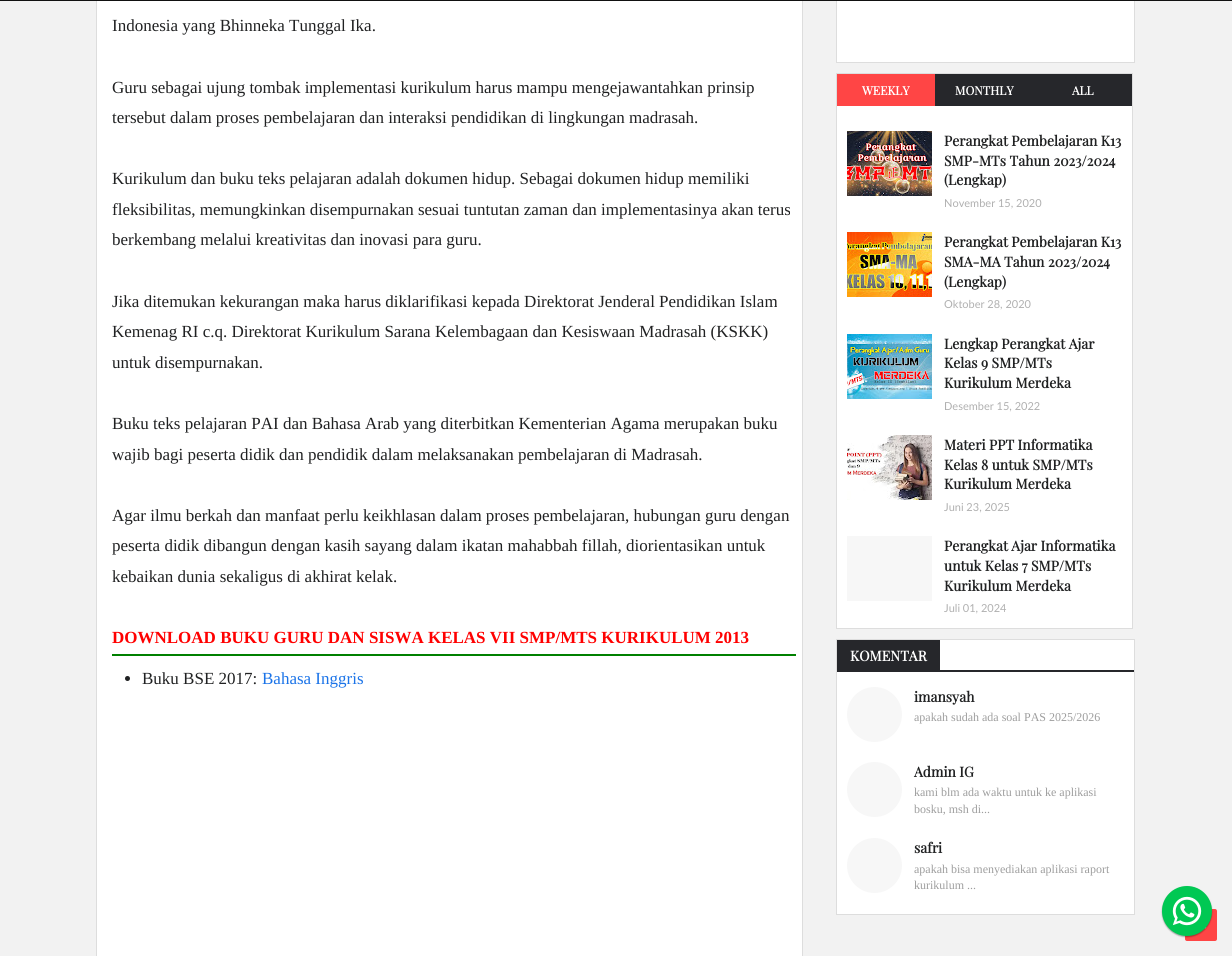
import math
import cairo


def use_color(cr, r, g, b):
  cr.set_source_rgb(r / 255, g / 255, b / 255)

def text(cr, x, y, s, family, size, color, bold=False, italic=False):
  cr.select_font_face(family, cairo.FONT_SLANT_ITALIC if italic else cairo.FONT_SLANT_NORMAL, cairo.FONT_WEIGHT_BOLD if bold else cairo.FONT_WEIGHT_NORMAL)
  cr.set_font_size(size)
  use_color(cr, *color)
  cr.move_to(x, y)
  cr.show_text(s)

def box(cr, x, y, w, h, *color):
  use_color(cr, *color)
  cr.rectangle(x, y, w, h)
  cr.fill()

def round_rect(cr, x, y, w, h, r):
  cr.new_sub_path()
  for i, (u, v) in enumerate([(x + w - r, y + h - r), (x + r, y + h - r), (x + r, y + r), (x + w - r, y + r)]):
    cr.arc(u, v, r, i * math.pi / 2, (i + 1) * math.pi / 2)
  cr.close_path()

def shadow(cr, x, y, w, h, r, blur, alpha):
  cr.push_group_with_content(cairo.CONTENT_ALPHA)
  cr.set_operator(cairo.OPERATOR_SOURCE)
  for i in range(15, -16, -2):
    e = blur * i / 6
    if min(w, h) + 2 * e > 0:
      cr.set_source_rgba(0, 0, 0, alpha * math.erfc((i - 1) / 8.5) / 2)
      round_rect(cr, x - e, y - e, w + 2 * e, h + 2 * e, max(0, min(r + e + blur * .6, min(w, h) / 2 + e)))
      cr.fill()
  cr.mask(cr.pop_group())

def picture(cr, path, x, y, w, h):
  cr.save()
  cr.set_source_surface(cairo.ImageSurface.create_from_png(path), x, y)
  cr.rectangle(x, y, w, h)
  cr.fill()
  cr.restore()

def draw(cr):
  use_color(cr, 242, 242, 242)
  cr.paint()
  box(cr, 97, 1, 705, 955, 255, 255, 255)
  cr.rectangle(96.5, -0.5, 706, 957)
  use_color(cr, 221, 221, 221)
  cr.set_line_width(1)
  cr.stroke()
  box(cr, 837, 1, 297, 61, 255, 255, 255)
  cr.rectangle(836.5, -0.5, 298, 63)
  use_color(cr, 221, 221, 221)
  cr.stroke()
  box(cr, 0, 0, 1232, 1, 17, 17, 17)
  box(cr, 112, 654, 684, 2, 0, 128, 0)
  use_color(cr, 32, 33, 34)
  cr.arc(127.5, 678.5, 2.5, 0, 2 * math.pi)
  cr.fill()
  box(cr, 837, 106, 295, 522, 255, 255, 255)
  cr.rectangle(836.5, 73.5, 296, 555)
  use_color(cr, 221, 221, 221)
  cr.stroke()
  box(cr, 935, 74, 197, 32, 38, 39, 43)
  box(cr, 837, 74, 98, 32, 255, 69, 69)
  picture(cr, "img_01.png", 847, 131, 85, 65)
  picture(cr, "img_02.png", 847, 232, 85, 65)
  picture(cr, "img_03.png", 847, 334, 85, 65)
  picture(cr, "img_04.png", 847, 435, 85, 65)
  box(cr, 847, 536, 85, 65, 247, 247, 247)
  use_color(cr, 255, 255, 255)
  cr.rectangle(836.5, 639.5, 298, 275)
  cr.fill_preserve()
  use_color(cr, 221, 221, 221)
  cr.stroke()
  box(cr, 837, 670, 297, 2, 38, 39, 43)
  box(cr, 837, 640, 103, 30, 38, 39, 43)
  use_color(cr, 247, 247, 247)
  cr.arc(874.5, 714.5, 27.5, 0, 2 * math.pi)
  cr.fill()
  cr.arc(874.5, 789.5, 27.5, 0, 2 * math.pi)
  cr.fill()
  cr.arc(874.5, 865.5, 27.5, 0, 2 * math.pi)
  cr.fill()
  use_color(cr, 255, 69, 69)
  round_rect(cr, 1185, 909, 32, 32, 2)
  cr.fill()
  picture(cr, "img_06.png", 1204, 927, 3, 2)
  use_color(cr, 0, 0, 0)
  shadow(cr, 1162, 887, 50, 50, 25, 0.5, 0.24)
  shadow(cr, 1162, 887, 50, 50, 25, 1, 0.12)
  use_color(cr, 0, 200, 83)
  cr.arc(1187, 911, 25, 0, 2 * math.pi)
  cr.fill()
  picture(cr, "img_05.png", 1172, 896, 30, 30)
  text(cr, 112, 31, "Indonesia yang Bhinneka Tunggal Ika.", "Liberation Serif", 17, (32, 33, 34))
  text(cr, 112, 93, "Guru sebagai ujung tombak implementasi kurikulum harus mampu mengejawantahkan prinsip", "Liberation Serif", 17, (32, 33, 34))
  text(cr, 112, 123, "tersebut dalam proses pembelajaran dan interaksi pendidikan di lingkungan madrasah.", "Liberation Serif", 17, (32, 33, 34))
  text(cr, 112, 184, "Kurikulum dan buku teks pelajaran adalah dokumen hidup. Sebagai dokumen hidup memiliki", "Liberation Serif", 17, (32, 33, 34))
  text(cr, 112, 215, "fleksibilitas, memungkinkan disempurnakan sesuai tuntutan zaman dan implementasinya akan terus", "Liberation Serif", 17, (32, 33, 34))
  text(cr, 112, 245, "berkembang melalui kreativitas dan inovasi para guru.", "Liberation Serif", 17, (32, 33, 34))
  text(cr, 112, 307, "Jika ditemukan kekurangan maka harus diklarifikasi kepada Direktorat Jenderal Pendidikan Islam", "Liberation Serif", 17, (32, 33, 34))
  text(cr, 112, 337, "Kemenag RI c.q. Direktorat Kurikulum Sarana Kelembagaan dan Kesiswaan Madrasah (KSKK)", "Liberation Serif", 17, (32, 33, 34))
  text(cr, 112, 368, "untuk disempurnakan.", "Liberation Serif", 17, (32, 33, 34))
  text(cr, 112, 429, "Buku teks pelajaran PAI dan Bahasa Arab yang diterbitkan Kementerian Agama merupakan buku", "Liberation Serif", 17, (32, 33, 34))
  text(cr, 112, 460, "wajib bagi peserta didik dan pendidik dalam melaksanakan pembelajaran di Madrasah.", "Liberation Serif", 17, (32, 33, 34))
  text(cr, 112, 521, "Agar ilmu berkah dan manfaat perlu keikhlasan dalam proses pembelajaran, hubungan guru dengan", "Liberation Serif", 17, (32, 33, 34))
  text(cr, 112, 551, "peserta didik dibangun dengan kasih sayang dalam ikatan mahabbah fillah, diorientasikan untuk", "Liberation Serif", 17, (32, 33, 34))
  text(cr, 112, 582, "kebaikan dunia sekaligus di akhirat kelak.", "Liberation Serif", 17, (32, 33, 34))
  text(cr, 112, 643, "DOWNLOAD BUKU GURU DAN SISWA KELAS VII SMP/MTS KURIKULUM 2013", "Liberation Serif", 17, (255, 0, 0), bold=True)
  text(cr, 142, 684, "Buku BSE 2017:", "Liberation Serif", 17, (32, 33, 34))
  text(cr, 262, 684, "Bahasa Inggris", "Liberation Serif", 17, (26, 115, 232))
  text(cr, 862, 95, "WEEKLY", "Playfair Display", 12, (255, 255, 255), bold=True)
  text(cr, 955, 95, "MONTHLY", "Playfair Display", 12, (255, 255, 255), bold=True)
  text(cr, 1072, 95, "ALL", "Playfair Display", 12, (255, 255, 255), bold=True)
  text(cr, 944, 146, "Perangkat Pembelajaran K13", "Playfair Display", 14, (32, 33, 34), bold=True)
  text(cr, 944, 166, "SMP-MTs Tahun 2023/2024", "Playfair Display", 14, (32, 33, 34), bold=True)
  text(cr, 944, 185, "(Lengkap)", "Playfair Display", 14, (32, 33, 34), bold=True)
  text(cr, 944, 207, "November 15, 2020", "Lato", 11, (176, 176, 176))
  text(cr, 944, 247, "Perangkat Pembelajaran K13", "Playfair Display", 14, (32, 33, 34), bold=True)
  text(cr, 944, 267, "SMA-MA Tahun 2023/2024", "Playfair Display", 14, (32, 33, 34), bold=True)
  text(cr, 944, 287, "(Lengkap)", "Playfair Display", 14, (32, 33, 34), bold=True)
  text(cr, 944, 308, "Oktober 28, 2020", "Lato", 11, (176, 176, 176))
  text(cr, 944, 349, "Lengkap Perangkat Ajar", "Playfair Display", 14, (32, 33, 34), bold=True)
  text(cr, 944, 368, "Kelas 9 SMP/MTs", "Playfair Display", 14, (32, 33, 34), bold=True)
  text(cr, 944, 388, "Kurikulum Merdeka", "Playfair Display", 14, (32, 33, 34), bold=True)
  text(cr, 944, 410, "Desember 15, 2022", "Lato", 11, (176, 176, 176))
  text(cr, 944, 450, "Materi PPT Informatika", "Playfair Display", 14, (32, 33, 34), bold=True)
  text(cr, 944, 470, "Kelas 8 untuk SMP/MTs", "Playfair Display", 14, (32, 33, 34), bold=True)
  text(cr, 944, 489, "Kurikulum Merdeka", "Playfair Display", 14, (32, 33, 34), bold=True)
  text(cr, 944, 511, "Juni 23, 2025", "Lato", 11, (176, 176, 176))
  text(cr, 944, 551, "Perangkat Ajar Informatika", "Playfair Display", 14, (32, 33, 34), bold=True)
  text(cr, 944, 571, "untuk Kelas 7 SMP/MTs", "Playfair Display", 14, (32, 33, 34), bold=True)
  text(cr, 944, 591, "Kurikulum Merdeka", "Playfair Display", 14, (32, 33, 34), bold=True)
  text(cr, 944, 612, "Juli 01, 2024", "Lato", 11, (176, 176, 176))
  text(cr, 850, 661, "KOMENTAR", "Playfair Display", 14, (255, 255, 255), bold=True)
  text(cr, 914, 702, "imansyah", "Playfair Display", 14, (32, 33, 34), bold=True)
  text(cr, 914, 721, "apakah sudah ada soal PAS 2025/2026", "Liberation Serif", 12, (158, 158, 158))
  text(cr, 914, 777, "Admin IG", "Playfair Display", 14, (32, 33, 34), bold=True)
  text(cr, 914, 796, "kami blm ada waktu untuk ke aplikasi", "Liberation Serif", 12, (158, 158, 158))
  text(cr, 914, 813, "bosku, msh di...", "Liberation Serif", 12, (158, 158, 158))
  text(cr, 914, 853, "safri", "Playfair Display", 14, (32, 33, 34), bold=True)
  text(cr, 914, 873, "apakah bisa menyediakan aplikasi raport", "Liberation Serif", 12, (158, 158, 158))
  text(cr, 914, 889, "kurikulum ...", "Liberation Serif", 12, (158, 158, 158))


surface = cairo.ImageSurface(cairo.FORMAT_RGB24, 1232, 956)
cr = cairo.Context(surface)
options = cairo.FontOptions()
options.set_hint_metrics(cairo.HINT_METRICS_OFF)
options.set_hint_style(cairo.HINT_STYLE_NONE)
cr.set_font_options(options)
cr.set_miter_limit(4)
draw(cr)
surface.write_to_png("out.png")
